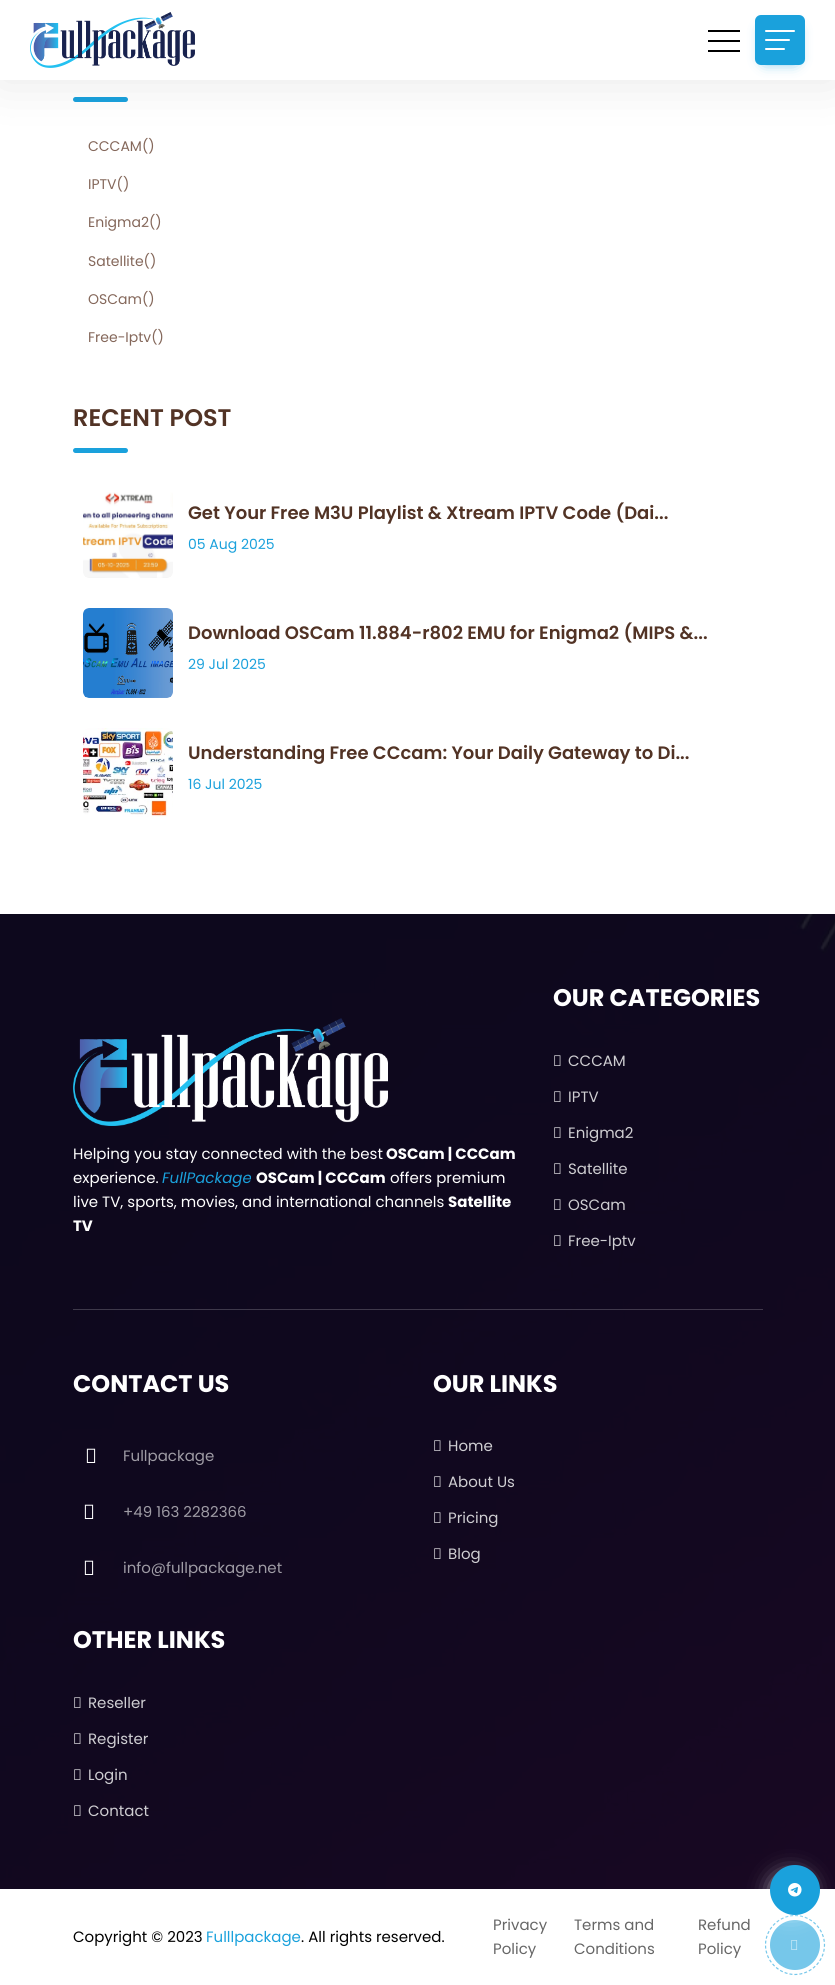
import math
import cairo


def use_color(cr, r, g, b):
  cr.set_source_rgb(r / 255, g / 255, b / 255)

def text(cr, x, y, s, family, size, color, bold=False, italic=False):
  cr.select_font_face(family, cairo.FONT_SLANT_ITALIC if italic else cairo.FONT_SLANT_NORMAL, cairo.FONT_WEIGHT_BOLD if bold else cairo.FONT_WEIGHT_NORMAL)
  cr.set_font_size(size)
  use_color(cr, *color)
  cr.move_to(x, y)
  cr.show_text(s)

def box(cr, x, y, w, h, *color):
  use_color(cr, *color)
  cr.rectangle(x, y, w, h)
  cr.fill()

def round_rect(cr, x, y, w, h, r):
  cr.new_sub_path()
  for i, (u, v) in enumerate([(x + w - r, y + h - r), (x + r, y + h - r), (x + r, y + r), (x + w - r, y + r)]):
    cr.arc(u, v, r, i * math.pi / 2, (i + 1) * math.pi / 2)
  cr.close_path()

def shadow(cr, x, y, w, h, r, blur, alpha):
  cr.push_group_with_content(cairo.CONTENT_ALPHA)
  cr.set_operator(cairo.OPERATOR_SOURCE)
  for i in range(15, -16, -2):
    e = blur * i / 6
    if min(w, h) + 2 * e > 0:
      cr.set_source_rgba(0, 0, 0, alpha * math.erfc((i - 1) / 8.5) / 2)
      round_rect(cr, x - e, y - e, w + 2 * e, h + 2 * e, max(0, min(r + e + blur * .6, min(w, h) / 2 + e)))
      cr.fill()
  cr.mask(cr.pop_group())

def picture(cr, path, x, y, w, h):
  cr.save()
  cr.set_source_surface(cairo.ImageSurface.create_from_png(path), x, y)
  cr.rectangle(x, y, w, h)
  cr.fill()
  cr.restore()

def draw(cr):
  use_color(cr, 255, 255, 255)
  cr.paint()
  use_color(cr, 26, 161, 220)
  round_rect(cr, 73, 97, 55, 5, 2.5)
  cr.fill()
  use_color(cr, 0, 0, 0)
  shadow(cr, 0, 0, 835, 80, 0, 25, 0.1)
  box(cr, 0, 0, 835, 80, 255, 255, 255)
  picture(cr, "img_01.png", 30, 12, 165, 56)
  box(cr, 708, 30, 32, 2, 0, 0, 0)
  box(cr, 708, 40, 32, 2, 0, 0, 0)
  box(cr, 708, 50, 32, 2, 0, 0, 0)
  use_color(cr, 26, 161, 220)
  shadow(cr, 765, 30, 30, 30, 0, 7.5, 1)
  use_color(cr, 26, 161, 220)
  round_rect(cr, 755, 15, 50, 50, 6)
  cr.fill()
  use_color(cr, 255, 255, 255)
  round_rect(cr, 765, 30, 30, 2, 1)
  cr.fill()
  round_rect(cr, 765, 39, 25, 2, 1)
  cr.fill()
  round_rect(cr, 765, 48, 20, 2, 1)
  cr.fill()
  use_color(cr, 26, 161, 220)
  round_rect(cr, 73, 448, 55, 5, 2.5)
  cr.fill()
  picture(cr, "img_02.png", 83, 492, 90, 86)
  picture(cr, "img_03.png", 83, 608, 90, 90)
  picture(cr, "img_04.png", 83, 728, 90, 89)
  picture(cr, "img_05.png", 0, 914, 835, 975)
  cr.set_source_rgba(1, 1, 1, 0.2)
  cr.rectangle(73, 1309, 690, 1)
  cr.fill()
  picture(cr, "img_06.png", 73, 1018, 315, 108)
  picture(cr, "img_07.png", 554, 1055, 7, 11)
  picture(cr, "img_08.png", 554, 1091, 7, 11)
  picture(cr, "img_09.png", 554, 1127, 7, 11)
  picture(cr, "img_09.png", 554, 1163, 7, 11)
  picture(cr, "img_10.png", 554, 1199, 7, 11)
  picture(cr, "img_11.png", 554, 1235, 7, 11)
  picture(cr, "img_12.png", 86, 1448, 10, 15)
  picture(cr, "img_13.png", 84, 1504, 10, 15)
  picture(cr, "img_14.png", 84, 1560, 10, 15)
  picture(cr, "img_15.png", 434, 1440, 7, 11)
  picture(cr, "img_16.png", 434, 1476, 7, 11)
  picture(cr, "img_17.png", 434, 1512, 7, 11)
  picture(cr, "img_18.png", 434, 1548, 7, 11)
  picture(cr, "img_19.png", 74, 1697, 7, 11)
  picture(cr, "img_20.png", 74, 1733, 7, 11)
  picture(cr, "img_21.png", 74, 1769, 7, 11)
  picture(cr, "img_22.png", 74, 1805, 7, 11)
  use_color(cr, 118, 199, 234)
  cr.arc(795, 1945, 25, 0, 2 * math.pi)
  cr.fill()
  cr.new_path()
  cr.move_to(795, 1915.5)
  cr.curve_to(811, 1915.5, 824.5, 1929, 824.5, 1945)
  cr.curve_to(824.5, 1961, 811, 1974.5, 795, 1974.5)
  cr.curve_to(779, 1974.5, 765.5, 1961, 765.5, 1945)
  cr.curve_to(765.5, 1929, 779, 1915.5, 795, 1915.5)
  cr.close_path()
  cr.set_line_width(1.2)
  cr.set_dash([3, 2])
  cr.stroke()
  picture(cr, "img_24.png", 791, 1940, 7, 10)
  use_color(cr, 255, 255, 255)
  shadow(cr, 776, 1879, 30, 30, 15, 12, 1)
  use_color(cr, 26, 161, 220)
  cr.arc(795, 1890, 25, 0, 2 * math.pi)
  cr.fill()
  picture(cr, "img_23.png", 788, 1883, 14, 14)
  text(cr, 88, 151, "CCCAM()", "Poppins", 14, (132, 103, 90))
  text(cr, 88, 189, "IPTV()", "Poppins", 14, (132, 103, 90))
  text(cr, 88, 227, "Enigma2()", "Poppins", 14, (132, 103, 90))
  text(cr, 88, 266, "Satellite()", "Poppins", 14, (132, 103, 90))
  text(cr, 88, 304, "OSCam()", "Poppins", 14, (132, 103, 90))
  text(cr, 88, 342, "Free-Iptv()", "Poppins", 14, (132, 103, 90))
  text(cr, 73, 426, "RECENT POST", "Poppins SemiBold", 24, (82, 51, 37))
  text(cr, 188, 519, "Get Your Free M3U Playlist & Xtream IPTV Code (Dai...", "Poppins SemiBold", 18, (82, 51, 37))
  text(cr, 188, 549, "05 Aug 2025", "Poppins", 14, (26, 161, 220))
  text(cr, 188, 639, "Download OSCam 11.884-r802 EMU for Enigma2 (MIPS &...", "Poppins SemiBold", 18, (82, 51, 37))
  text(cr, 188, 669, "29 Jul 2025", "Poppins", 14, (26, 161, 220))
  text(cr, 188, 759, "Understanding Free CCcam: Your Daily Gateway to Di...", "Poppins SemiBold", 18, (82, 51, 37))
  text(cr, 188, 789, "16 Jul 2025", "Poppins", 14, (26, 161, 220))
  text(cr, 73, 1159, "Helping you stay connected with the best", "Poppins", 15, (255, 255, 255))
  text(cr, 386, 1159, "OSCam | CCCam", "Poppins", 15, (255, 255, 255), bold=True)
  text(cr, 73, 1183, "experience.", "Poppins", 15, (255, 255, 255))
  text(cr, 162, 1183, "FullPackage", "Poppins", 15, (26, 161, 220), italic=True)
  text(cr, 256, 1183, "OSCam | CCCam", "Poppins", 15, (255, 255, 255), bold=True)
  text(cr, 390, 1183, "offers premium", "Poppins", 15, (255, 255, 255))
  text(cr, 73, 1207, "live TV, sports, movies, and international channels", "Poppins", 15, (255, 255, 255))
  text(cr, 448, 1207, "Satellite", "Poppins", 15, (255, 255, 255), bold=True)
  text(cr, 73, 1231, "TV", "Poppins", 15, (255, 255, 255), bold=True)
  text(cr, 553, 1006, "OUR CATEGORIES", "Poppins", 24, (255, 255, 255), bold=True)
  text(cr, 568, 1066, "CCCAM", "Poppins", 15, (207, 206, 210))
  text(cr, 568, 1102, "IPTV", "Poppins", 15, (207, 206, 210))
  text(cr, 568, 1138, "Enigma2", "Poppins", 15, (207, 206, 210))
  text(cr, 568, 1174, "Satellite", "Poppins", 15, (207, 206, 210))
  text(cr, 568, 1210, "OSCam", "Poppins", 15, (207, 206, 210))
  text(cr, 568, 1246, "Free-Iptv", "Poppins", 15, (207, 206, 210))
  text(cr, 73, 1392, "CONTACT US", "Poppins", 24, (255, 255, 255), bold=True)
  text(cr, 123, 1461, "Fullpackage", "Poppins", 15, (159, 156, 165))
  text(cr, 123, 1517, "+49 163 2282366", "Poppins", 15, (159, 156, 165))
  text(cr, 123, 1573, "info@fullpackage.net", "Poppins", 15, (159, 156, 165))
  text(cr, 433, 1392, "OUR LINKS", "Poppins", 24, (255, 255, 255), bold=True)
  text(cr, 448, 1451, "Home", "Poppins", 15, (207, 206, 210))
  text(cr, 448, 1487, "About Us", "Poppins", 15, (207, 206, 210))
  text(cr, 448, 1523, "Pricing", "Poppins", 15, (207, 206, 210))
  text(cr, 448, 1559, "Blog", "Poppins", 15, (207, 206, 210))
  text(cr, 73, 1648, "OTHER LINKS", "Poppins", 24, (255, 255, 255), bold=True)
  text(cr, 88, 1708, "Reseller", "Poppins", 15, (207, 206, 210))
  text(cr, 88, 1744, "Register", "Poppins", 15, (207, 206, 210))
  text(cr, 88, 1780, "Login", "Poppins", 15, (207, 206, 210))
  text(cr, 88, 1816, "Contact", "Poppins", 15, (207, 206, 210))
  text(cr, 73, 1942, "Copyright © 2023", "Poppins", 15, (0, 0, 0))
  text(cr, 206, 1942, "Fulllpackage", "Poppins", 15, (26, 161, 220))
  text(cr, 301, 1942, ". All rights reserved.", "Poppins", 15, (0, 0, 0))
  text(cr, 493, 1930, "Privacy", "Poppins", 15, (102, 102, 102))
  text(cr, 493, 1954, "Policy", "Poppins", 15, (102, 102, 102))
  text(cr, 574, 1930, "Terms and", "Poppins", 15, (102, 102, 102))
  text(cr, 574, 1954, "Conditions", "Poppins", 15, (102, 102, 102))
  text(cr, 698, 1930, "Refund", "Poppins", 15, (102, 102, 102))
  text(cr, 698, 1954, "Policy", "Poppins", 15, (102, 102, 102))


surface = cairo.ImageSurface(cairo.FORMAT_RGB24, 835, 1985)
cr = cairo.Context(surface)
options = cairo.FontOptions()
options.set_hint_metrics(cairo.HINT_METRICS_OFF)
options.set_hint_style(cairo.HINT_STYLE_NONE)
cr.set_font_options(options)
cr.set_miter_limit(4)
draw(cr)
surface.write_to_png("out.png")
